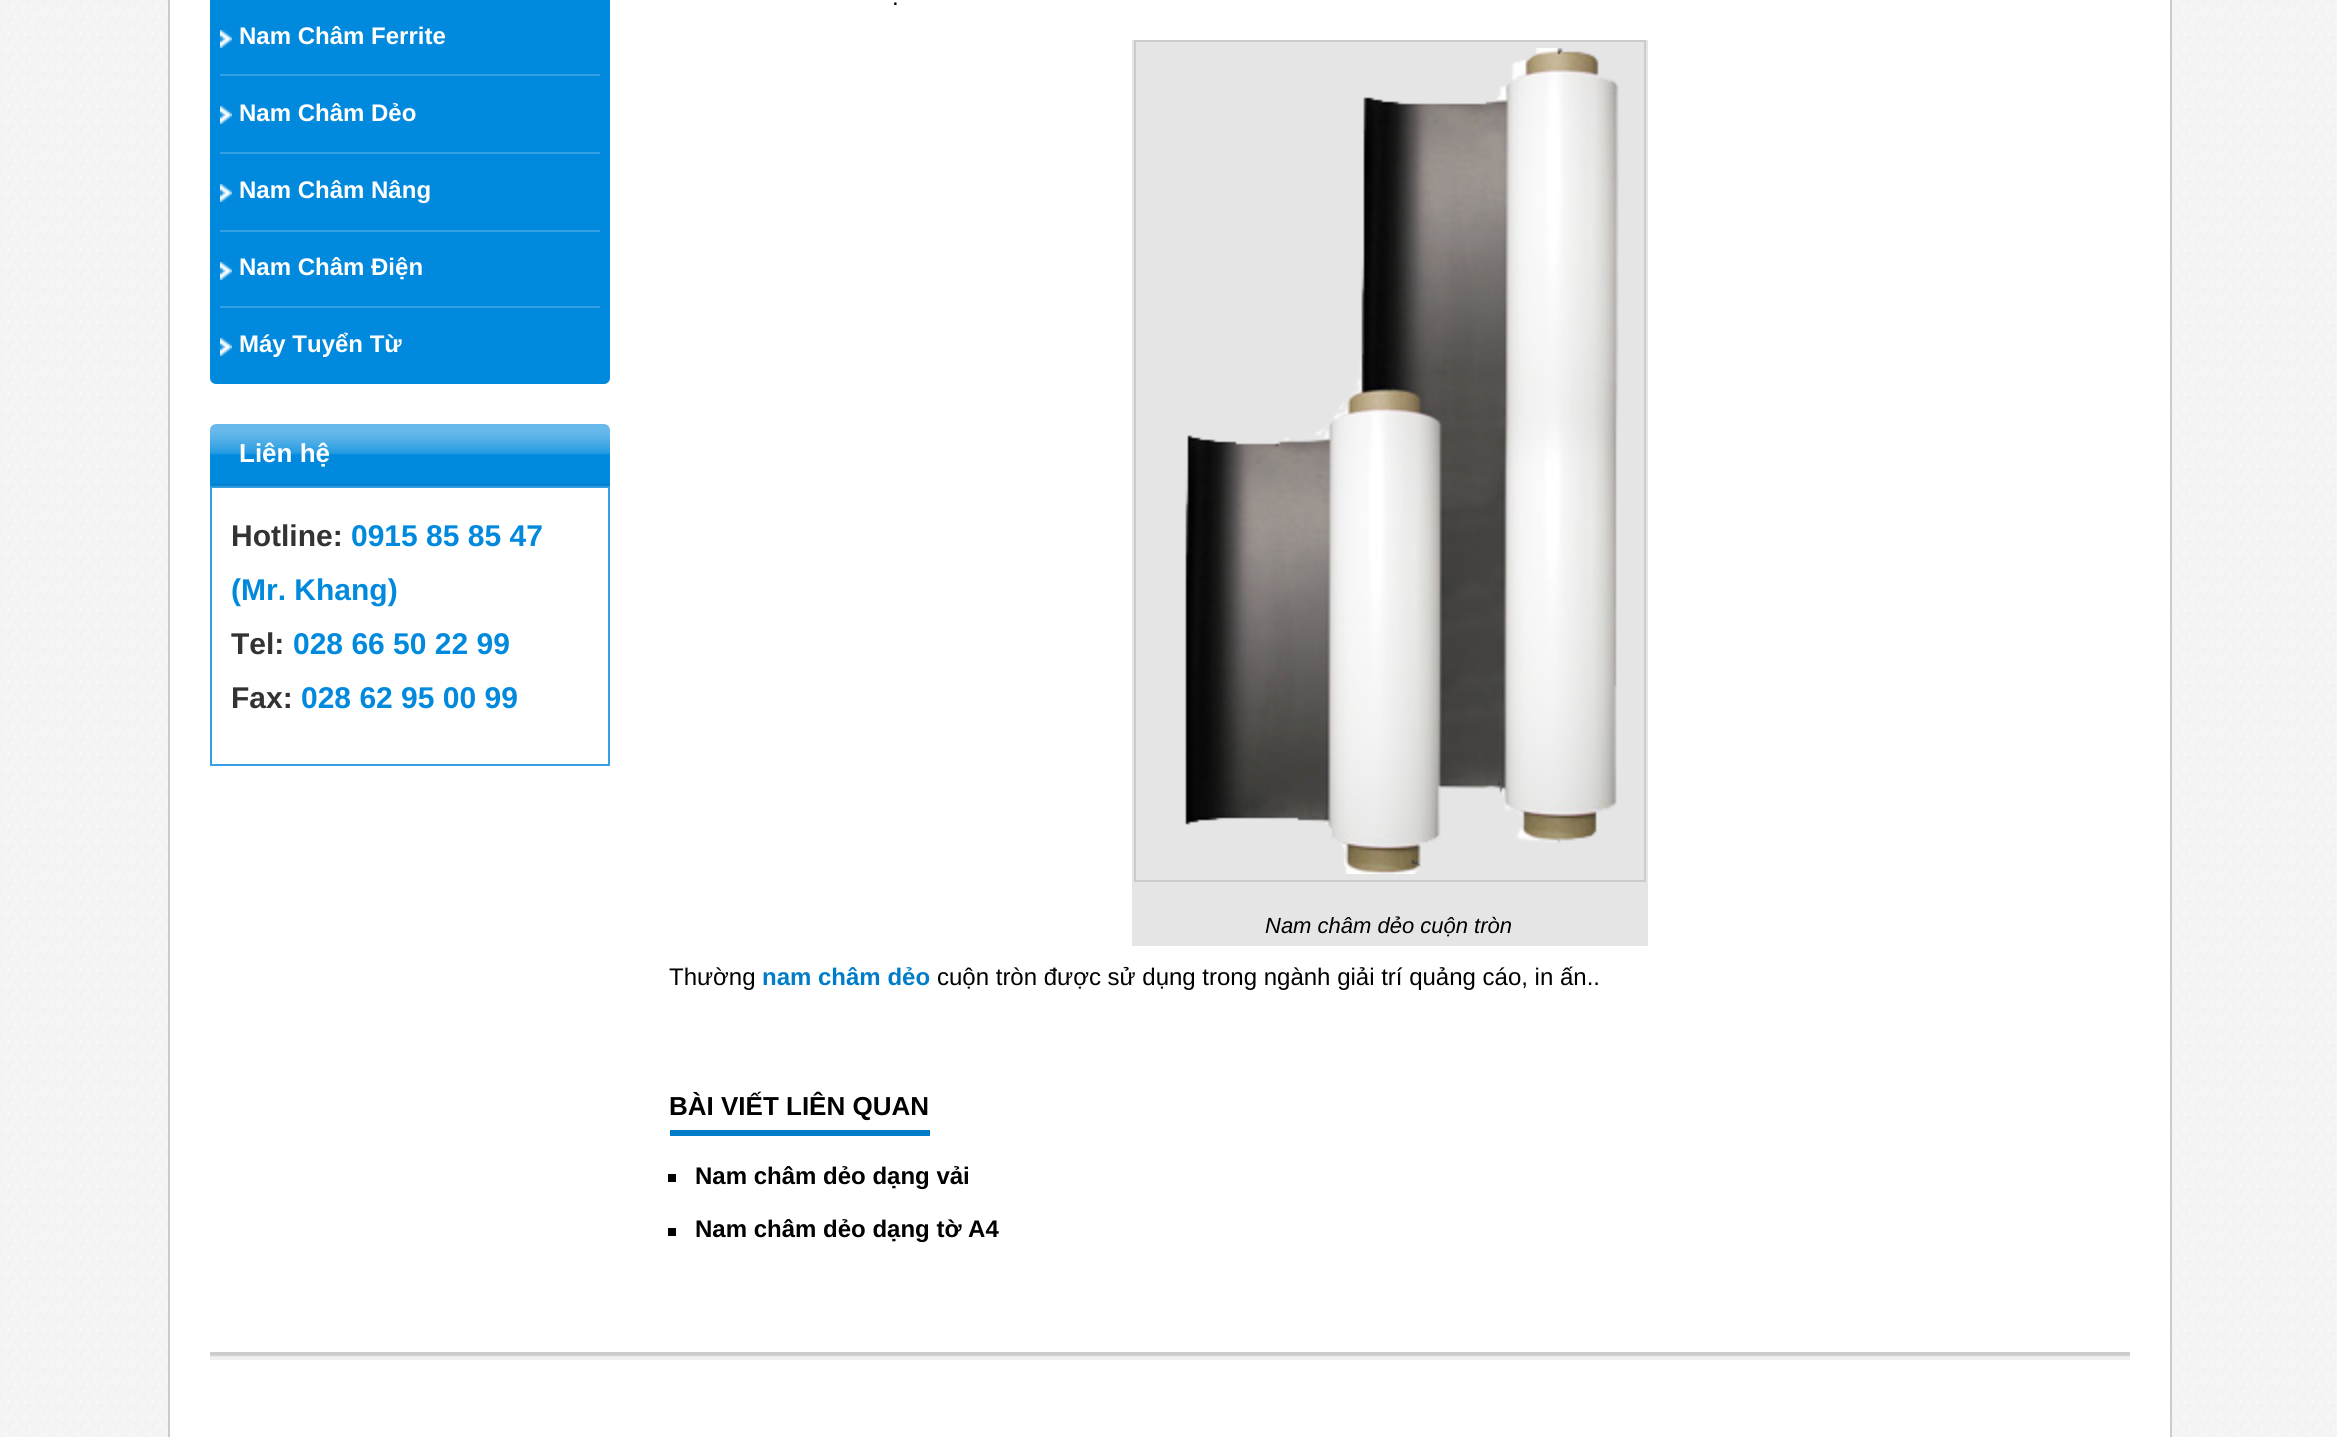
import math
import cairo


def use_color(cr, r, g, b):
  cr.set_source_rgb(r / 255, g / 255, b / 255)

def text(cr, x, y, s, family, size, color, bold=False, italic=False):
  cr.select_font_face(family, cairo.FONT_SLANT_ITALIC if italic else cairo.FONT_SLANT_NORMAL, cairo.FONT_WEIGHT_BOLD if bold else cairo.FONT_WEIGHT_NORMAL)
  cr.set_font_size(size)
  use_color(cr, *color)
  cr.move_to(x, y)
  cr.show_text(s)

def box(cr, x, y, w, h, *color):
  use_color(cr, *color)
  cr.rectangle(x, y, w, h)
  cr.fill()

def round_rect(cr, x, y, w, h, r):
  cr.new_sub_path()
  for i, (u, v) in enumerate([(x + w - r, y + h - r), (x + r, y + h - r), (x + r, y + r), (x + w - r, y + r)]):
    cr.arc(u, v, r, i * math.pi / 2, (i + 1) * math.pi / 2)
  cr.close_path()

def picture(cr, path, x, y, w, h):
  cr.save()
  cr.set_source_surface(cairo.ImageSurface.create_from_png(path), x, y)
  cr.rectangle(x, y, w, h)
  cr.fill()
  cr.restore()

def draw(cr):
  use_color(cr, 255, 255, 255)
  cr.paint()
  picture(cr, "img_01.png", 0, 0, 2337, 1437)
  use_color(cr, 255, 255, 255)
  cr.rectangle(169, -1, 2002, 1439)
  cr.fill_preserve()
  use_color(cr, 204, 204, 204)
  cr.stroke()
  use_color(cr, 1, 138, 221)
  round_rect(cr, 210, -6, 400, 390, 6)
  cr.fill()
  picture(cr, "img_02.png", 220, 30, 12, 18)
  picture(cr, "img_02.png", 220, 106, 12, 18)
  box(cr, 220, 74, 380, 2, 52, 161, 228)
  picture(cr, "img_02.png", 220, 184, 12, 18)
  box(cr, 220, 152, 380, 2, 52, 161, 228)
  picture(cr, "img_02.png", 220, 262, 12, 18)
  box(cr, 220, 230, 380, 2, 52, 161, 228)
  picture(cr, "img_02.png", 220, 338, 12, 18)
  box(cr, 220, 306, 380, 2, 52, 161, 228)
  picture(cr, "img_03.png", 210, 424, 400, 64)
  box(cr, 608, 488, 2, 278, 52, 161, 228)
  box(cr, 210, 764, 400, 2, 52, 161, 228)
  box(cr, 210, 488, 2, 278, 52, 161, 228)
  box(cr, 1132, 40, 516, 906, 229, 229, 229)
  cr.rectangle(1135, 41, 510, 840)
  use_color(cr, 204, 204, 204)
  cr.stroke()
  picture(cr, "img_04.png", 1185, 48, 434, 826)
  box(cr, 670, 1130, 260, 6, 0, 124, 200)
  box(cr, 668, 1174, 8, 8, 0, 0, 0)
  box(cr, 668, 1228, 8, 8, 0, 0, 0)
  picture(cr, "img_05.png", 210, 1354, 1920, 6)
  box(cr, 210, 1352, 1920, 2, 204, 204, 204)
  text(cr, 239, 44, "Nam Châm Ferrite", "Liberation Sans", 24, (255, 255, 255), bold=True)
  text(cr, 239, 121, "Nam Châm Dẻo", "Liberation Sans", 24, (255, 255, 255), bold=True)
  text(cr, 239, 198, "Nam Châm Nâng", "Liberation Sans", 24, (255, 255, 255), bold=True)
  text(cr, 239, 275, "Nam Châm Điện", "Liberation Sans", 24, (255, 255, 255), bold=True)
  text(cr, 239, 352, "Máy Tuyển Từ", "Liberation Sans", 24, (255, 255, 255), bold=True)
  text(cr, 239, 462, "Liên hệ", "Liberation Sans", 26, (255, 255, 255), bold=True)
  text(cr, 231, 546, "Hotline:", "Liberation Sans", 30, (51, 51, 51), bold=True)
  text(cr, 351, 546, "0915 85 85 47", "Liberation Sans", 30, (1, 138, 221), bold=True)
  text(cr, 231, 600, "(Mr. Khang)", "Liberation Sans", 30, (1, 138, 221), bold=True)
  text(cr, 231, 654, "Tel:", "Liberation Sans", 30, (51, 51, 51), bold=True)
  text(cr, 293, 654, "028 66 50 22 99", "Liberation Sans", 30, (1, 138, 221), bold=True)
  text(cr, 231, 708, "Fax:", "Liberation Sans", 30, (51, 51, 51), bold=True)
  text(cr, 301, 708, "028 62 95 00 99", "Liberation Sans", 30, (1, 138, 221), bold=True)
  text(cr, 892, 5, ".", "Liberation Sans", 24, (0, 0, 0))
  text(cr, 1265, 933, "Nam châm dẻo cuộn tròn", "Liberation Sans", 22, (0, 0, 0), italic=True)
  text(cr, 669, 985, "Thường", "Liberation Sans", 24, (0, 0, 0))
  text(cr, 762, 985, "nam châm dẻo", "Liberation Sans", 24, (0, 124, 200), bold=True)
  text(cr, 937, 985, "cuộn tròn được sử dụng trong ngành giải trí quảng cáo, in ấn..", "Liberation Sans", 24, (0, 0, 0))
  text(cr, 669, 1115, "BÀI VIẾT LIÊN QUAN", "Liberation Sans", 26, (0, 0, 0), bold=True)
  text(cr, 695, 1184, "Nam châm dẻo dạng vải", "Liberation Sans", 24, (0, 0, 0), bold=True)
  text(cr, 695, 1237, "Nam châm dẻo dạng tờ A4", "Liberation Sans", 24, (0, 0, 0), bold=True)


surface = cairo.ImageSurface(cairo.FORMAT_RGB24, 2337, 1437)
cr = cairo.Context(surface)
options = cairo.FontOptions()
options.set_hint_metrics(cairo.HINT_METRICS_OFF)
options.set_hint_style(cairo.HINT_STYLE_NONE)
cr.set_font_options(options)
cr.set_miter_limit(4)
draw(cr)
surface.write_to_png("out.png")
